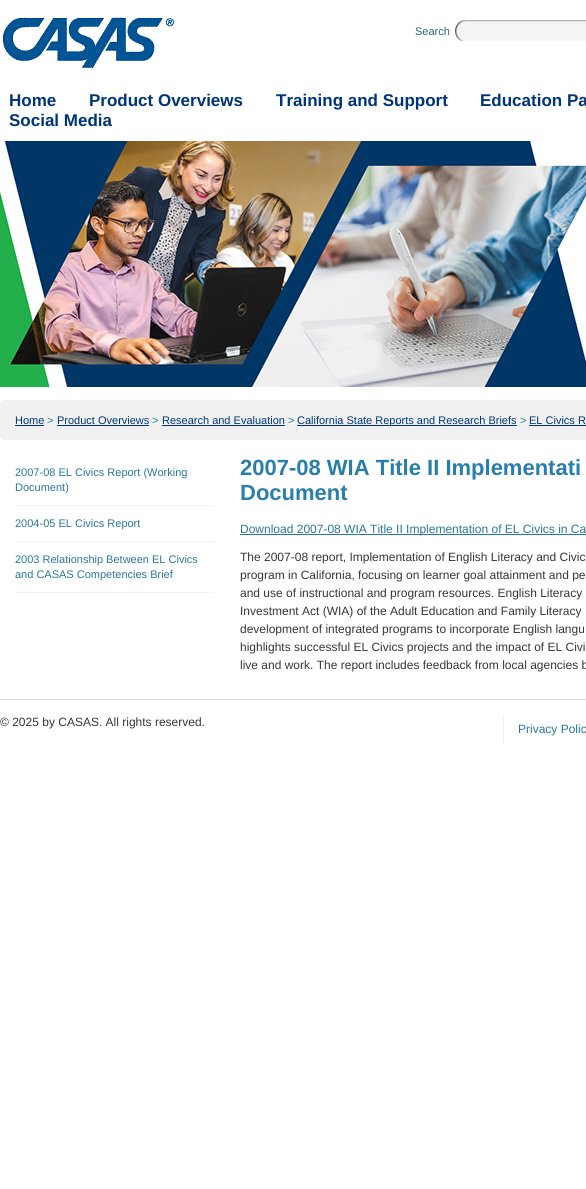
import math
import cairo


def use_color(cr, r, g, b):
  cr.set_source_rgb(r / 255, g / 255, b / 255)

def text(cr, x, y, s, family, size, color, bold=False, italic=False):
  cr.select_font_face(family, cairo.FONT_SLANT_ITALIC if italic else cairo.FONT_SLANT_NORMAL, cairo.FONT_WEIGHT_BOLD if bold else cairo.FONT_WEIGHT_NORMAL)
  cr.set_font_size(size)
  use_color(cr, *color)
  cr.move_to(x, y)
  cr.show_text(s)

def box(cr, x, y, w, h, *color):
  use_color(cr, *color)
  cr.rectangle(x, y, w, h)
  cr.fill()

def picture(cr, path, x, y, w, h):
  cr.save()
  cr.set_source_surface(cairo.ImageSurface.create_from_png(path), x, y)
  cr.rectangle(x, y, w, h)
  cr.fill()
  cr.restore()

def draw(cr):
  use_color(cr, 255, 255, 255)
  cr.paint()
  picture(cr, "img_01.png", 3, 17, 171, 51)
  picture(cr, "img_02.png", 455, 20, 131, 21)
  picture(cr, "img_03.png", 0, 141, 586, 246)
  box(cr, 4, 400, 582, 40, 241, 241, 241)
  picture(cr, "img_04.png", 0, 400, 4, 40)
  box(cr, 15, 425, 29, 1, 0, 52, 121)
  box(cr, 57, 425, 92, 1, 0, 52, 121)
  box(cr, 162, 425, 123, 1, 0, 52, 121)
  box(cr, 297, 425, 220, 1, 0, 52, 121)
  box(cr, 529, 425, 57, 1, 0, 52, 121)
  box(cr, 15, 505, 200, 1, 242, 242, 242)
  box(cr, 15, 541, 200, 1, 242, 242, 242)
  box(cr, 15, 592, 200, 1, 242, 242, 242)
  box(cr, 240, 534, 346, 1, 39, 119, 154)
  box(cr, 0, 699, 586, 1, 217, 217, 217)
  box(cr, 503, 715, 1, 28, 238, 238, 238)
  text(cr, 415, 35, "Search", "Liberation Sans", 11, (40, 100, 128))
  text(cr, 9, 106, "Home", "Liberation Sans", 17, (0, 52, 121), bold=True)
  text(cr, 89, 106, "Product Overviews", "Liberation Sans", 17, (0, 52, 121), bold=True)
  text(cr, 276, 106, "Training and Support", "Liberation Sans", 17, (0, 52, 121), bold=True)
  text(cr, 480, 106, "Education Pa", "Liberation Sans", 17, (0, 52, 121), bold=True)
  text(cr, 9, 126, "Social Media", "Liberation Sans", 17, (0, 52, 121), bold=True)
  text(cr, 15, 424, "Home", "Liberation Sans", 11, (0, 52, 121))
  text(cr, 47, 424, ">", "Liberation Sans", 11, (39, 119, 154))
  text(cr, 57, 424, "Product Overviews", "Liberation Sans", 11, (0, 52, 121))
  text(cr, 152, 424, ">", "Liberation Sans", 11, (39, 119, 154))
  text(cr, 162, 424, "Research and Evaluation", "Liberation Sans", 11, (0, 52, 121))
  text(cr, 288, 424, ">", "Liberation Sans", 11, (39, 119, 154))
  text(cr, 297, 424, "California State Reports and Research Briefs", "Liberation Sans", 11, (0, 52, 121))
  text(cr, 520, 424, ">", "Liberation Sans", 11, (39, 119, 154))
  text(cr, 529, 424, "EL Civics R", "Liberation Sans", 11, (0, 52, 121))
  text(cr, 15, 476, "2007-08 EL Civics Report (Working", "Liberation Sans", 11, (39, 119, 154))
  text(cr, 15, 491, "Document)", "Liberation Sans", 11, (39, 119, 154))
  text(cr, 15, 527, "2004-05 EL Civics Report", "Liberation Sans", 11, (39, 119, 154))
  text(cr, 15, 563, "2003 Relationship Between EL Civics", "Liberation Sans", 11, (39, 119, 154))
  text(cr, 15, 578, "and CASAS Competencies Brief", "Liberation Sans", 11, (39, 119, 154))
  text(cr, 240, 475, "2007-08 WIA Title II Implementati", "Liberation Sans", 22, (40, 126, 172), bold=True)
  text(cr, 240, 500, "Document", "Liberation Sans", 22, (40, 126, 172), bold=True)
  text(cr, 240, 533, "Download 2007-08 WIA Title II Implementation of EL Civics in Ca", "Liberation Sans", 12, (39, 119, 154))
  text(cr, 240, 561, "The 2007-08 report, Implementation of English Literacy and Civic", "Liberation Sans", 12, (54, 54, 54))
  text(cr, 240, 579, "program in California, focusing on learner goal attainment and pe", "Liberation Sans", 12, (54, 54, 54))
  text(cr, 240, 597, "and use of instructional and program resources. English Literacy", "Liberation Sans", 12, (54, 54, 54))
  text(cr, 240, 615, "Investment Act (WIA) of the Adult Education and Family Literacy", "Liberation Sans", 12, (54, 54, 54))
  text(cr, 240, 633, "development of integrated programs to incorporate English langu", "Liberation Sans", 12, (54, 54, 54))
  text(cr, 240, 651, "highlights successful EL Civics projects and the impact of EL Civi", "Liberation Sans", 12, (54, 54, 54))
  text(cr, 240, 669, "live and work. The report includes feedback from local agencies b", "Liberation Sans", 12, (54, 54, 54))
  text(cr, 0, 726, "© 2025 by CASAS. All rights reserved.", "Liberation Sans", 12, (54, 54, 54))
  text(cr, 518, 733, "Privacy Polic", "Liberation Sans", 12, (39, 119, 154))


surface = cairo.ImageSurface(cairo.FORMAT_RGB24, 586, 1189)
cr = cairo.Context(surface)
options = cairo.FontOptions()
options.set_hint_metrics(cairo.HINT_METRICS_OFF)
options.set_hint_style(cairo.HINT_STYLE_NONE)
cr.set_font_options(options)
cr.set_miter_limit(4)
draw(cr)
surface.write_to_png("out.png")
